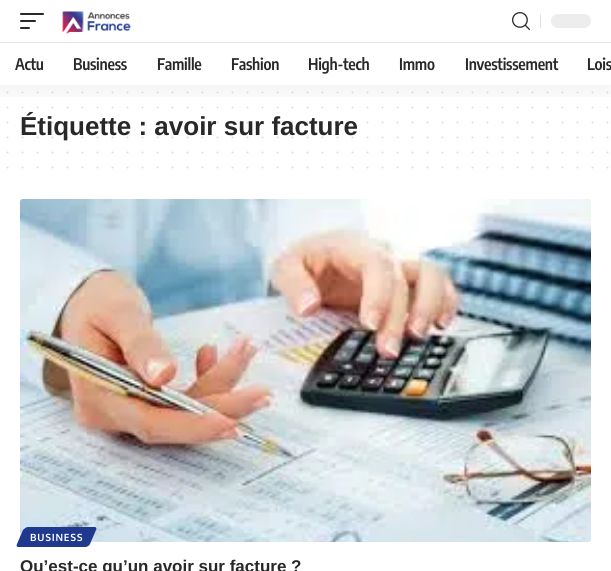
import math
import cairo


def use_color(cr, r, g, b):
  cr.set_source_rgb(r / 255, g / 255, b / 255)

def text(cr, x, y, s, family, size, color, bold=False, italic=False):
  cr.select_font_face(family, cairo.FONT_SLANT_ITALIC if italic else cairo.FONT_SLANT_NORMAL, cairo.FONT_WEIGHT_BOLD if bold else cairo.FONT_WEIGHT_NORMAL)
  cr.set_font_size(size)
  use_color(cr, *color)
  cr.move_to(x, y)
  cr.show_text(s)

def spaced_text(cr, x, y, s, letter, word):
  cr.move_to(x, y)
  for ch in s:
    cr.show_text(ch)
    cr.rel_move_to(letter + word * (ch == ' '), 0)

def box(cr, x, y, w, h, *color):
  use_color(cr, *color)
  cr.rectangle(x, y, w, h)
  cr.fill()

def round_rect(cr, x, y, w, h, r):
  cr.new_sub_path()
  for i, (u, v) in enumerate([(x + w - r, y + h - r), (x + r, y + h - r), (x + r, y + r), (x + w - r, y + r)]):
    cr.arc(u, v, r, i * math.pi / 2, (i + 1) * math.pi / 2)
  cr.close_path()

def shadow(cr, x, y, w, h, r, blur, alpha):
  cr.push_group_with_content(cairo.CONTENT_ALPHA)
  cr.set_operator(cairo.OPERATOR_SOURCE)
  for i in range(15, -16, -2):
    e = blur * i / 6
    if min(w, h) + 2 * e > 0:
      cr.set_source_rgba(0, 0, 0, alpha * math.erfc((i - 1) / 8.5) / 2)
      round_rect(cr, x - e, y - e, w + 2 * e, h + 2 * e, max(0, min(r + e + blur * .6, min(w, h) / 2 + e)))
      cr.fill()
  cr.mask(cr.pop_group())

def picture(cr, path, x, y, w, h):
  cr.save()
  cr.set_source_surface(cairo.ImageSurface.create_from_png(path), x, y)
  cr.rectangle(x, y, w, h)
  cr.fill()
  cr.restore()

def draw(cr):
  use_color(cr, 255, 255, 255)
  cr.paint()
  cr.new_path()
  cr.move_to(7.5, 92.5)
  cr.line_to(607.7, 92.5)
  use_color(cr, 223, 223, 223)
  cr.set_line_cap(cairo.LINE_CAP_ROUND)
  cr.set_dash([0, 15])
  cr.stroke()
  cr.new_path()
  cr.move_to(7.5, 107.5)
  cr.line_to(607.7, 107.5)
  cr.stroke()
  cr.new_path()
  cr.move_to(7.5, 152.5)
  cr.line_to(607.7, 152.5)
  cr.stroke()
  cr.new_path()
  cr.move_to(7.5, 167.5)
  cr.line_to(607.7, 167.5)
  cr.stroke()
  picture(cr, "img_03.png", 20, 199, 571, 343)
  use_color(cr, 31, 57, 143)
  cr.new_path()
  cr.move_to(28, 527)
  cr.line_to(95, 527)
  cr.curve_to(96, 527, 97, 529, 96, 530)
  cr.line_to(90, 544)
  cr.curve_to(89, 546, 87, 547, 85, 547)
  cr.line_to(18, 547)
  cr.curve_to(17, 547, 16, 546, 17, 544)
  cr.line_to(23, 530)
  cr.curve_to(24, 529, 26, 527, 28, 527)
  cr.close_path()
  cr.fill()
  text(cr, 20, 135, "Étiquette : avoir sur facture", "Liberation Sans", 26, (40, 40, 40), bold=True)
  cr.new_path()
  cr.move_to(7.5, 122.5)
  cr.line_to(607.7, 122.5)
  cr.set_source_rgba(0.157, 0.157, 0.157, 0.15)
  cr.stroke()
  cr.save()
  cr.rectangle(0, 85, 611, 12)
  cr.clip()
  use_color(cr, 0, 0, 0)
  shadow(cr, 0, 4, 611, 85, 0, 15, 0.07)
  cr.restore()
  cr.select_font_face("Encode Sans Condensed SemiBold")
  cr.set_font_size(16)
  use_color(cr, 40, 40, 40)
  spaced_text(cr, 587, 70, "Lois", -0.25, 0)
  spaced_text(cr, 465, 70, "Investissement", -0.25, 0)
  spaced_text(cr, 399, 70, "Immo", -0.25, 0)
  spaced_text(cr, 308, 70, "High-tech", -0.25, 0)
  spaced_text(cr, 231, 70, "Fashion", -0.25, 0)
  spaced_text(cr, 157, 70, "Famille", -0.25, 0)
  spaced_text(cr, 73, 70, "Business", -0.25, 0)
  spaced_text(cr, 15, 70, "Actu", -0.25, 0)
  box(cr, 0, 42, 611, 1, 228, 228, 228)
  use_color(cr, 237, 237, 237)
  round_rect(cr, 551, 14, 40, 14, 7)
  cr.fill()
  box(cr, 540, 14, 1, 14, 228, 228, 228)
  picture(cr, "img_02.png", 512, 12, 18, 18)
  use_color(cr, 40, 40, 40)
  round_rect(cr, 20, 27, 10, 2, 1)
  cr.fill()
  round_rect(cr, 20, 20, 16, 2, 1)
  cr.fill()
  round_rect(cr, 20, 13, 24, 2, 1)
  cr.fill()
  picture(cr, "img_01.png", 62, 11, 69, 23)
  cr.new_path()
  cr.move_to(7.5, 137.5)
  cr.line_to(607.7, 137.5)
  cr.set_source_rgba(0.157, 0.157, 0.157, 0.15)
  cr.stroke()
  cr.select_font_face("Oxygen", cairo.FONT_SLANT_NORMAL, cairo.FONT_WEIGHT_BOLD)
  cr.set_font_size(10)
  use_color(cr, 255, 255, 255)
  spaced_text(cr, 30, 541, "BUSINESS", 0.75, 0)
  text(cr, 20, 572, "Qu’est-ce qu’un avoir sur facture ?", "Liberation Sans", 17, (40, 40, 40), bold=True)


surface = cairo.ImageSurface(cairo.FORMAT_RGB24, 611, 571)
cr = cairo.Context(surface)
options = cairo.FontOptions()
options.set_hint_metrics(cairo.HINT_METRICS_OFF)
options.set_hint_style(cairo.HINT_STYLE_NONE)
cr.set_font_options(options)
cr.set_miter_limit(4)
draw(cr)
surface.write_to_png("out.png")
